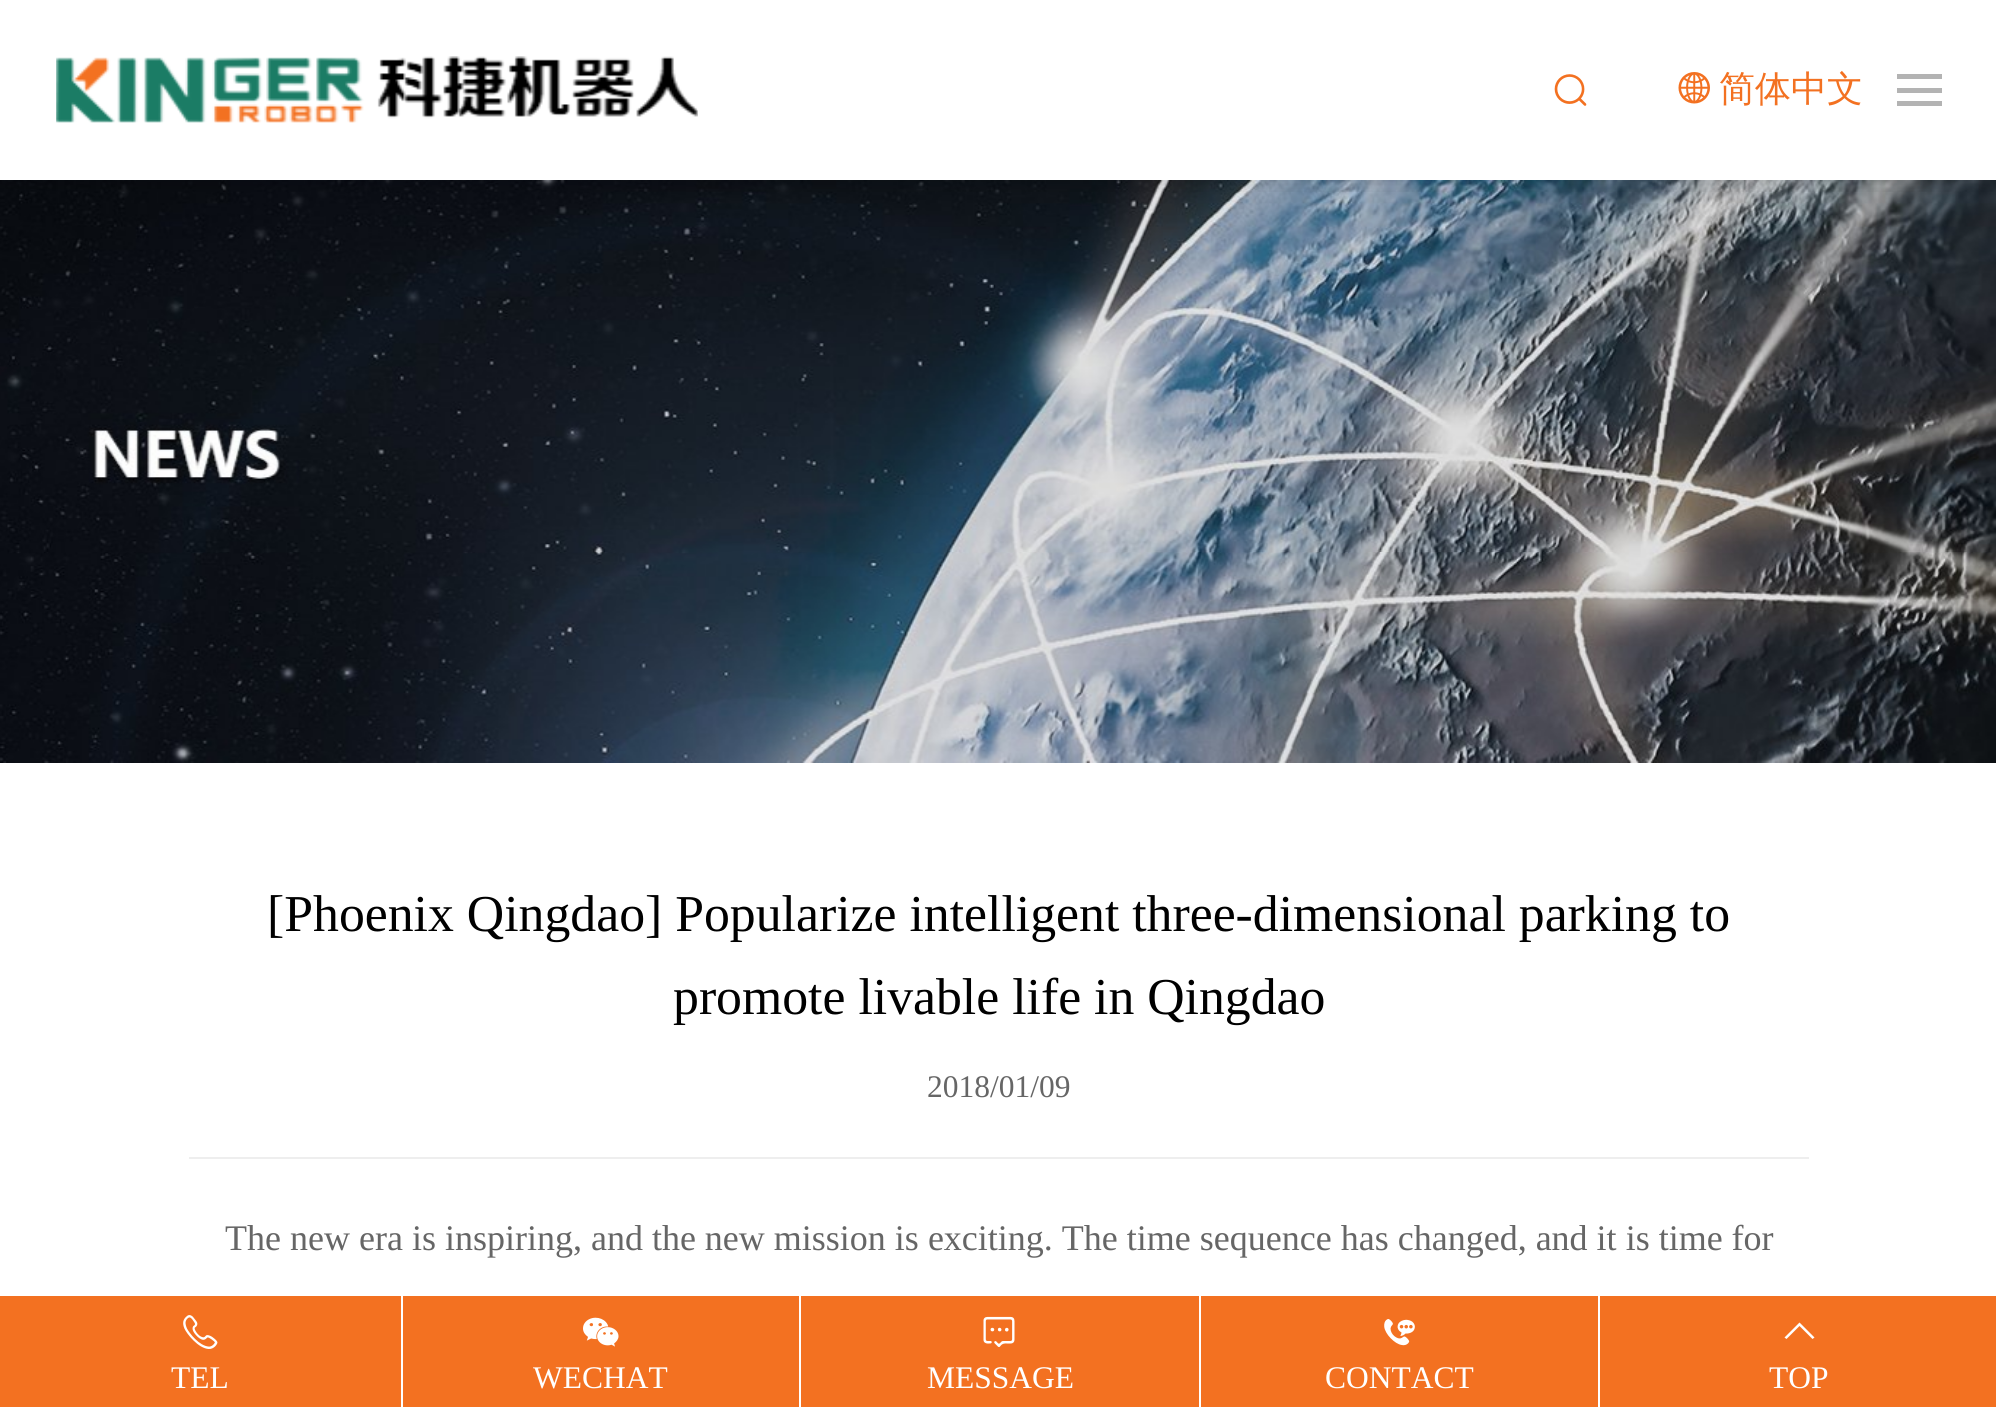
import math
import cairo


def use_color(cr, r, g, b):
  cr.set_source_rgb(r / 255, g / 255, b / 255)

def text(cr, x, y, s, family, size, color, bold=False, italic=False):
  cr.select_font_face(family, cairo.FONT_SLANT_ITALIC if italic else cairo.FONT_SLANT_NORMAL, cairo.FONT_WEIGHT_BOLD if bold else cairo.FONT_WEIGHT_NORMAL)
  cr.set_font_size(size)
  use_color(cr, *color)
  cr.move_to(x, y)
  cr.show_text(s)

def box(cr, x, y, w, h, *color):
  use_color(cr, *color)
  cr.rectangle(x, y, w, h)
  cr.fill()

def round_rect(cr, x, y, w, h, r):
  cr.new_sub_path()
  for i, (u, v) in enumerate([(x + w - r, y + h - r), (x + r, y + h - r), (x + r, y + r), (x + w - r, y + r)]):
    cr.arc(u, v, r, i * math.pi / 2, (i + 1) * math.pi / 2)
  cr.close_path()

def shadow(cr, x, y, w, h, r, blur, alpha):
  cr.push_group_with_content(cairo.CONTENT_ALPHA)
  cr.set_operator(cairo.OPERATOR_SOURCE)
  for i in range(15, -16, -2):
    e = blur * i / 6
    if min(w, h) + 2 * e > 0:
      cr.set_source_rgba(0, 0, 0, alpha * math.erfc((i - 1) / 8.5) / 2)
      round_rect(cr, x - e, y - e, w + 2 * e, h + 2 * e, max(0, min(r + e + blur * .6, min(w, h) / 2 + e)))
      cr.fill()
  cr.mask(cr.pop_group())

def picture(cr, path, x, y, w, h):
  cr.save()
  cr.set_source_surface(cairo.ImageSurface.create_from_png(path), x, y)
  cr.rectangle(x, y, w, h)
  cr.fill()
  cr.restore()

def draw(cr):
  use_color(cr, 255, 255, 255)
  cr.paint()
  picture(cr, "img_04.png", 0, 180, 1996, 583)
  cr.save()
  cr.rectangle(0, 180, 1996, 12)
  cr.clip()
  use_color(cr, 0, 0, 0)
  shadow(cr, 0, 0, 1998, 180, 0, 11, 0.15)
  cr.restore()
  picture(cr, "img_01.png", 56, 56, 642, 67)
  picture(cr, "img_02.png", 1554, 74, 33, 32)
  picture(cr, "img_03.png", 1678, 72, 32, 32)
  box(cr, 1897, 74, 45, 5, 179, 179, 179)
  box(cr, 1897, 88, 45, 5, 179, 179, 179)
  box(cr, 1897, 101, 45, 5, 179, 179, 179)
  box(cr, 189, 1157, 1620, 2, 238, 238, 238)
  box(cr, 0, 1296, 1996, 111, 243, 113, 33)
  picture(cr, "img_05.png", 183, 1315, 35, 34)
  box(cr, 401, 1296, 2, 111, 255, 255, 255)
  picture(cr, "img_06.png", 583, 1317, 36, 30)
  box(cr, 799, 1296, 2, 111, 255, 255, 255)
  picture(cr, "img_07.png", 983, 1316, 32, 31)
  box(cr, 1199, 1296, 2, 111, 255, 255, 255)
  picture(cr, "img_08.png", 1384, 1319, 31, 27)
  box(cr, 1598, 1296, 2, 111, 255, 255, 255)
  cr.new_path()
  cr.move_to(1799.5, 1322.5)
  cr.line_to(1784.5, 1337.5)
  cr.line_to(1786.5, 1339)
  cr.line_to(1799.5, 1326)
  cr.line_to(1812.5, 1339)
  cr.line_to(1814.5, 1337.5)
  cr.close_path()
  cr.fill()
  text(cr, 1719, 101, "简体中文", "WenQuanYi Zen Hei Medium", 36, (243, 113, 33))
  text(cr, 267, 931, "[Phoenix Qingdao] Popularize intelligent three-dimensional parking to", "Liberation Serif", 51.75, (0, 0, 0))
  text(cr, 673, 1014, "promote livable life in Qingdao", "Liberation Serif", 51.75, (0, 0, 0))
  text(cr, 927, 1097, "2018/01/09", "Liberation Serif", 31.5, (102, 102, 102))
  text(cr, 225, 1250, "The new era is inspiring, and the new mission is exciting. The time sequence has changed, and it is time for", "Liberation Serif", 36, (102, 102, 102))
  text(cr, 171, 1388, "TEL", "Liberation Serif", 31.5, (255, 255, 255))
  text(cr, 533, 1388, "WECHAT", "Liberation Serif", 31.5, (255, 255, 255))
  text(cr, 927, 1388, "MESSAGE", "Liberation Serif", 31.5, (255, 255, 255))
  text(cr, 1325, 1388, "CONTACT", "Liberation Serif", 31.5, (255, 255, 255))
  text(cr, 1769, 1388, "TOP", "Liberation Serif", 31.5, (255, 255, 255))


surface = cairo.ImageSurface(cairo.FORMAT_RGB24, 1996, 1407)
cr = cairo.Context(surface)
options = cairo.FontOptions()
options.set_hint_metrics(cairo.HINT_METRICS_OFF)
options.set_hint_style(cairo.HINT_STYLE_NONE)
cr.set_font_options(options)
cr.set_miter_limit(4)
draw(cr)
surface.write_to_png("out.png")
